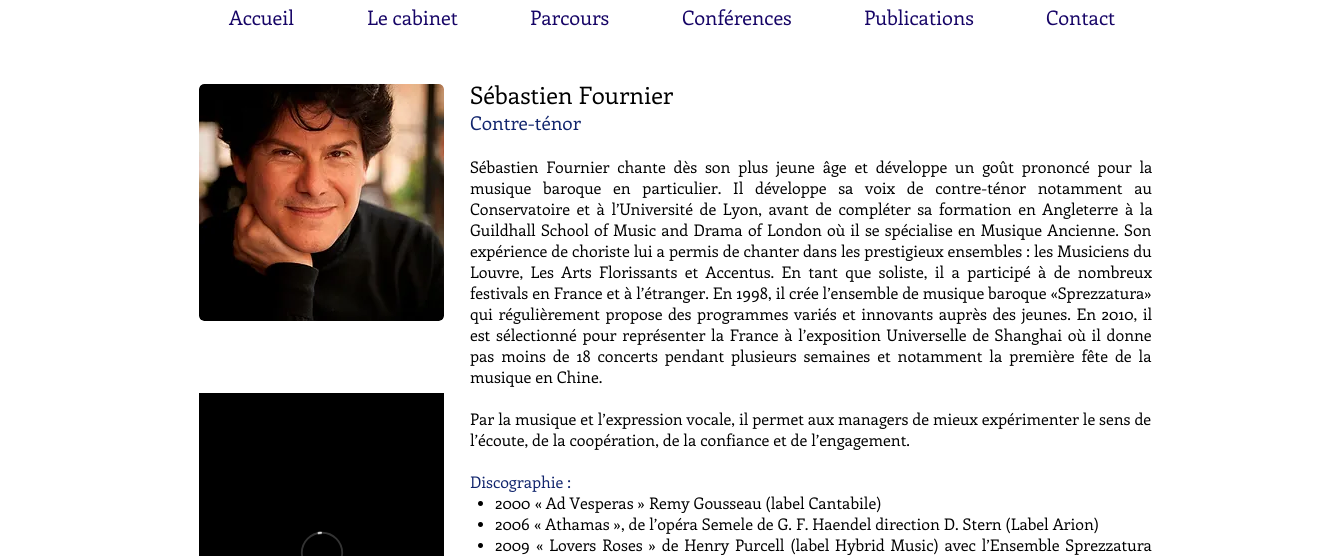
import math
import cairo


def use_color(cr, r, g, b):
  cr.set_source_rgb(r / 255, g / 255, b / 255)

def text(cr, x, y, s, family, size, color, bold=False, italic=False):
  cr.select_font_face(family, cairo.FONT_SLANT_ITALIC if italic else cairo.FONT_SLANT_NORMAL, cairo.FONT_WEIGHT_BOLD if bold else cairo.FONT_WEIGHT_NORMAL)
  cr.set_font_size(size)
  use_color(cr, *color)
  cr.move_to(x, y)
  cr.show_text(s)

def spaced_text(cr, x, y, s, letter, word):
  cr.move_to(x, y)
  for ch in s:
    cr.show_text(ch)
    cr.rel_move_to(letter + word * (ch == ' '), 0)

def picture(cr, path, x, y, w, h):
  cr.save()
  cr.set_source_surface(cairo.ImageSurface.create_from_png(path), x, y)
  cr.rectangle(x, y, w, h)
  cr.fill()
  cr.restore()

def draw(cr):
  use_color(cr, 255, 255, 255)
  cr.paint()
  picture(cr, "img_01.png", 199, 84, 245, 237)
  use_color(cr, 0, 0, 0)
  cr.arc(480.5, 503.5, 2.5, 0, 2 * math.pi)
  cr.fill()
  cr.arc(480.5, 524.5, 2.5, 0, 2 * math.pi)
  cr.fill()
  cr.arc(480.5, 545.5, 2.5, 0, 2 * math.pi)
  cr.fill()
  picture(cr, "img_02.png", 199, 393, 245, 163)
  text(cr, 229, 25, "Accueil", "Enriqueta", 20, (22, 4, 102))
  text(cr, 367, 25, "Le cabinet", "Enriqueta", 20, (22, 4, 102))
  text(cr, 530, 25, "Parcours", "Enriqueta", 20, (22, 4, 102))
  text(cr, 682, 25, "Conférences", "Enriqueta", 20, (22, 4, 102))
  text(cr, 864, 25, "Publications", "Enriqueta", 20, (22, 4, 102))
  text(cr, 1046, 25, "Contact", "Enriqueta", 20, (22, 4, 102))
  text(cr, 470, 104, "Sébastien Fournier", "Enriqueta", 24, (0, 0, 0))
  text(cr, 470, 130, "Contre-ténor", "Enriqueta", 19, (17, 37, 109))
  cr.set_font_size(16)
  use_color(cr, 0, 0, 0)
  spaced_text(cr, 470, 173, "Sébastien Fournier chante dès son plus jeune âge et développe un goût prononcé pour la", 0, 3.9)
  spaced_text(cr, 470, 194, "musique baroque en particulier. Il développe sa voix de contre-ténor notamment au", 0, 7.75)
  spaced_text(cr, 470, 215, "Conservatoire et à l’Université de Lyon, avant de compléter sa formation en Angleterre à la", 0, 2.6)
  spaced_text(cr, 470, 236, "Guildhall School of Music and Drama of London où il se spécialise en Musique Ancienne. Son", 0, 1.25)
  spaced_text(cr, 470, 257, "expérience de choriste lui a permis de chanter dans les prestigieux ensembles : les Musiciens du", 0, 0.1)
  spaced_text(cr, 470, 278, "Louvre, Les Arts Florissants et Accentus. En tant que soliste, il a participé à de nombreux", 0, 3.4)
  text(cr, 470, 299, "festivals en France et à l’étranger. En 1998, il crée l’ensemble de musique baroque «Sprezzatura»", "Enriqueta", 16, (0, 0, 0))
  spaced_text(cr, 470, 320, "qui régulièrement propose des programmes variés et innovants auprès des jeunes. En 2010, il", 0, 1.6)
  spaced_text(cr, 470, 341, "est sélectionné pour représenter la France à l’exposition Universelle de Shanghai où il donne", 0, 1.75)
  spaced_text(cr, 470, 362, "pas moins de 18 concerts pendant plusieurs semaines et notamment la première fête de la", 0, 3)
  text(cr, 470, 383, "musique en Chine.", "Enriqueta", 16, (0, 0, 0))
  text(cr, 470, 425, "Par la musique et l’expression vocale, il permet aux managers de mieux expérimenter le sens de", "Enriqueta", 16, (0, 0, 0))
  text(cr, 470, 446, "l’écoute, de la coopération, de la confiance et de l’engagement.", "Enriqueta", 16, (0, 0, 0))
  text(cr, 470, 488, "Discographie :", "Enriqueta", 16, (17, 37, 109))
  text(cr, 495, 509, "2000 « Ad Vesperas » Remy Gousseau (label Cantabile)", "Enriqueta", 16, (0, 0, 0))
  text(cr, 495, 530, "2006 « Athamas », de l’opéra Semele de G. F. Haendel direction D. Stern (Label Arion)", "Enriqueta", 16, (0, 0, 0))
  spaced_text(cr, 495, 551, "2009 « Lovers Roses » de Henry Purcell (label Hybrid Music) avec l’Ensemble Sprezzatura", 0, 2)


surface = cairo.ImageSurface(cairo.FORMAT_RGB24, 1344, 556)
cr = cairo.Context(surface)
options = cairo.FontOptions()
options.set_hint_metrics(cairo.HINT_METRICS_OFF)
options.set_hint_style(cairo.HINT_STYLE_NONE)
cr.set_font_options(options)
cr.set_miter_limit(4)
draw(cr)
surface.write_to_png("out.png")
